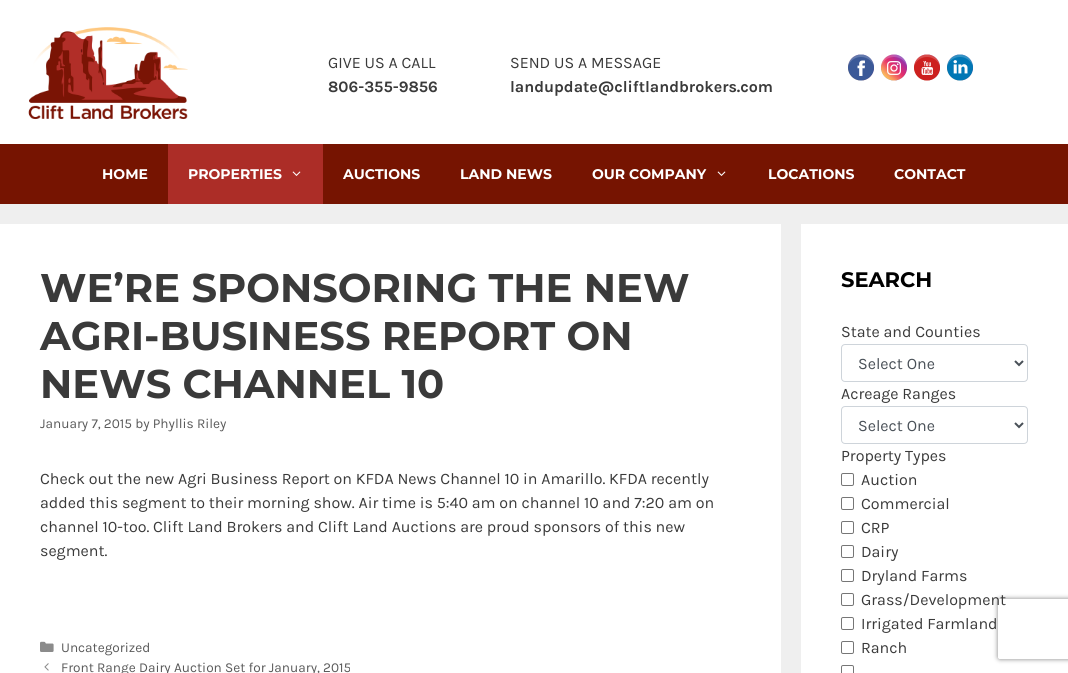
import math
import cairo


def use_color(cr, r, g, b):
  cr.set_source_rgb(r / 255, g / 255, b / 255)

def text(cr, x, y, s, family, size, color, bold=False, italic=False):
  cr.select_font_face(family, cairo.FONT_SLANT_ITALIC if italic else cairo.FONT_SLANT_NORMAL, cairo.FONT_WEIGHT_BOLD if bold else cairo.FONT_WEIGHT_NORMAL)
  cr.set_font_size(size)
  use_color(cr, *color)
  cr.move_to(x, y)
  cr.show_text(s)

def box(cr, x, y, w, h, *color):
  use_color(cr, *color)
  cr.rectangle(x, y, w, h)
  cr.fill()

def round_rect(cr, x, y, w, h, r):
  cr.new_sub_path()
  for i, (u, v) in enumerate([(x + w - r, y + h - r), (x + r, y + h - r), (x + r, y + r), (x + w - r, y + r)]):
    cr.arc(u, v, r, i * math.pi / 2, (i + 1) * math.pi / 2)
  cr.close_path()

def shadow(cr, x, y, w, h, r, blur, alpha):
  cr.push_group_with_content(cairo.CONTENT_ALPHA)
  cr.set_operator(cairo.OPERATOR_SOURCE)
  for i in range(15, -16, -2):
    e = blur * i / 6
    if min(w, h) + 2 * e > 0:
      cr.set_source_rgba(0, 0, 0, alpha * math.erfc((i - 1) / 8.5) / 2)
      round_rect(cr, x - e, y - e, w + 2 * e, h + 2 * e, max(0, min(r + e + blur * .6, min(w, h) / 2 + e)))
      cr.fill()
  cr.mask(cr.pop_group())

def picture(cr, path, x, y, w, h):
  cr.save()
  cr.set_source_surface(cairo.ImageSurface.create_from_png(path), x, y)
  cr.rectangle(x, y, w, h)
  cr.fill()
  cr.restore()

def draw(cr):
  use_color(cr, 239, 239, 239)
  cr.paint()
  box(cr, 0, 0, 1068, 144, 255, 255, 255)
  picture(cr, "img_01.png", 28, 27, 160, 93)
  picture(cr, "img_02.png", 848, 54, 26, 27)
  picture(cr, "img_03.png", 881, 54, 26, 27)
  picture(cr, "img_04.png", 914, 54, 26, 27)
  picture(cr, "img_05.png", 947, 54, 26, 27)
  box(cr, 0, 144, 1068, 60, 118, 20, 1)
  box(cr, 168, 144, 155, 60, 172, 45, 39)
  picture(cr, "img_06.png", 292, 171, 9, 5)
  picture(cr, "img_07.png", 717, 171, 9, 5)
  box(cr, 0, 224, 781, 449, 255, 255, 255)
  picture(cr, "img_08.png", 40, 641, 14, 11)
  picture(cr, "img_09.png", 44, 663, 5, 8)
  box(cr, 801, 224, 267, 449, 255, 255, 255)
  round_rect(cr, 841.5, 344.5, 186, 37, 3.5)
  use_color(cr, 206, 212, 218)
  cr.set_line_width(1)
  cr.stroke()
  cr.new_path()
  cr.move_to(1015, 361)
  cr.line_to(1019, 365)
  cr.line_to(1023, 361)
  use_color(cr, 73, 80, 87)
  cr.set_line_width(2)
  cr.stroke()
  round_rect(cr, 841.5, 406.5, 186, 37, 3.5)
  use_color(cr, 206, 212, 218)
  cr.set_line_width(1)
  cr.stroke()
  cr.new_path()
  cr.move_to(1015, 423)
  cr.line_to(1019, 427)
  cr.line_to(1023, 423)
  use_color(cr, 73, 80, 87)
  cr.set_line_width(2)
  cr.stroke()
  round_rect(cr, 841.5, 473.5, 12, 12, 1.5)
  use_color(cr, 118, 118, 118)
  cr.set_line_width(1)
  cr.stroke()
  round_rect(cr, 841.5, 497.5, 12, 12, 1.5)
  cr.stroke()
  round_rect(cr, 841.5, 521.5, 12, 12, 1.5)
  cr.stroke()
  round_rect(cr, 841.5, 545.5, 12, 12, 1.5)
  cr.stroke()
  round_rect(cr, 841.5, 569.5, 12, 12, 1.5)
  cr.stroke()
  round_rect(cr, 841.5, 593.5, 12, 12, 1.5)
  cr.stroke()
  round_rect(cr, 841.5, 617.5, 12, 12, 1.5)
  cr.stroke()
  round_rect(cr, 841.5, 641.5, 12, 12, 1.5)
  cr.stroke()
  round_rect(cr, 841.5, 665.5, 12, 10, 1.5)
  cr.stroke()
  cr.save()
  cr.set_fill_rule(cairo.FILL_RULE_EVEN_ODD)
  cr.new_path()
  cr.move_to(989, 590)
  cr.line_to(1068, 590)
  cr.line_to(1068, 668)
  cr.line_to(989, 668)
  cr.close_path()
  cr.move_to(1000, 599)
  cr.line_to(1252, 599)
  cr.curve_to(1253, 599, 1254, 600, 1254, 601)
  cr.line_to(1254, 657)
  cr.curve_to(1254, 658, 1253, 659, 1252, 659)
  cr.line_to(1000, 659)
  cr.curve_to(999, 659, 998, 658, 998, 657)
  cr.line_to(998, 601)
  cr.curve_to(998, 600, 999, 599, 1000, 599)
  cr.close_path()
  cr.clip()
  use_color(cr, 128, 128, 128)
  shadow(cr, 998, 599, 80, 60, 2, 2.5, 1)
  cr.restore()
  text(cr, 328, 68, "GIVE US A CALL", "Karla", 16, (58, 58, 58))
  text(cr, 328, 92, "806-355-9856", "Karla", 16, (58, 58, 58), bold=True)
  text(cr, 510, 68, "SEND US A MESSAGE", "Karla", 16, (58, 58, 58))
  text(cr, 510, 92, "landupdate@cliftlandbrokers.com", "Karla", 16, (58, 58, 58), bold=True)
  text(cr, 102, 179, "HOME", "Montserrat", 14, (255, 255, 255), bold=True)
  text(cr, 188, 179, "PROPERTIES", "Montserrat", 14, (255, 255, 255), bold=True)
  text(cr, 343, 179, "AUCTIONS", "Montserrat", 14, (255, 255, 255), bold=True)
  text(cr, 460, 179, "LAND NEWS", "Montserrat", 14, (255, 255, 255), bold=True)
  text(cr, 592, 179, "OUR COMPANY", "Montserrat", 14, (255, 255, 255), bold=True)
  text(cr, 768, 179, "LOCATIONS", "Montserrat", 14, (255, 255, 255), bold=True)
  text(cr, 894, 179, "CONTACT", "Montserrat", 14, (255, 255, 255), bold=True)
  text(cr, 40, 302, "WE’RE SPONSORING THE NEW", "Montserrat", 40, (58, 58, 58), bold=True)
  text(cr, 40, 350, "AGRI-BUSINESS REPORT ON", "Montserrat", 40, (58, 58, 58), bold=True)
  text(cr, 40, 398, "NEWS CHANNEL 10", "Montserrat", 40, (58, 58, 58), bold=True)
  text(cr, 40, 428, "January 7, 2015 by Phyllis Riley", "Karla", 13.6, (89, 89, 89))
  text(cr, 40, 484, "Check out the new Agri Business Report on KFDA News Channel 10 in Amarillo. KFDA recently", "Karla", 16, (58, 58, 58))
  text(cr, 40, 508, "added this segment to their morning show. Air time is 5:40 am on channel 10 and 7:20 am on", "Karla", 16, (58, 58, 58))
  text(cr, 40, 532, "channel 10-too. Clift Land Brokers and Clift Land Auctions are proud sponsors of this new", "Karla", 16, (58, 58, 58))
  text(cr, 40, 556, "segment.", "Karla", 16, (58, 58, 58))
  text(cr, 61, 652, "Uncategorized", "Karla", 13.6, (89, 89, 89))
  text(cr, 61, 672, "Front Range Dairy Auction Set for January, 2015", "Karla", 13.6, (89, 89, 89))
  text(cr, 841, 287, "SEARCH", "Montserrat", 21, (0, 0, 0), bold=True)
  text(cr, 841, 337, "State and Counties", "Karla", 16, (58, 58, 58))
  text(cr, 858, 369, "Select One", "Karla", 16, (73, 80, 87))
  text(cr, 841, 399, "Acreage Ranges", "Karla", 16, (58, 58, 58))
  text(cr, 858, 431, "Select One", "Karla", 16, (73, 80, 87))
  text(cr, 841, 461, "Property Types", "Karla", 16, (58, 58, 58))
  text(cr, 861, 485, "Auction", "Karla", 16, (58, 58, 58))
  text(cr, 861, 509, "Commercial", "Karla", 16, (58, 58, 58))
  text(cr, 861, 533, "CRP", "Karla", 16, (58, 58, 58))
  text(cr, 861, 557, "Dairy", "Karla", 16, (58, 58, 58))
  text(cr, 861, 581, "Dryland Farms", "Karla", 16, (58, 58, 58))
  text(cr, 861, 605, "Grass/Development", "Karla", 16, (58, 58, 58))
  text(cr, 861, 629, "Irrigated Farmland", "Karla", 16, (58, 58, 58))
  text(cr, 861, 653, "Ranch", "Karla", 16, (58, 58, 58))


surface = cairo.ImageSurface(cairo.FORMAT_RGB24, 1068, 673)
cr = cairo.Context(surface)
options = cairo.FontOptions()
options.set_hint_metrics(cairo.HINT_METRICS_OFF)
options.set_hint_style(cairo.HINT_STYLE_NONE)
cr.set_font_options(options)
cr.set_miter_limit(4)
draw(cr)
surface.write_to_png("out.png")
